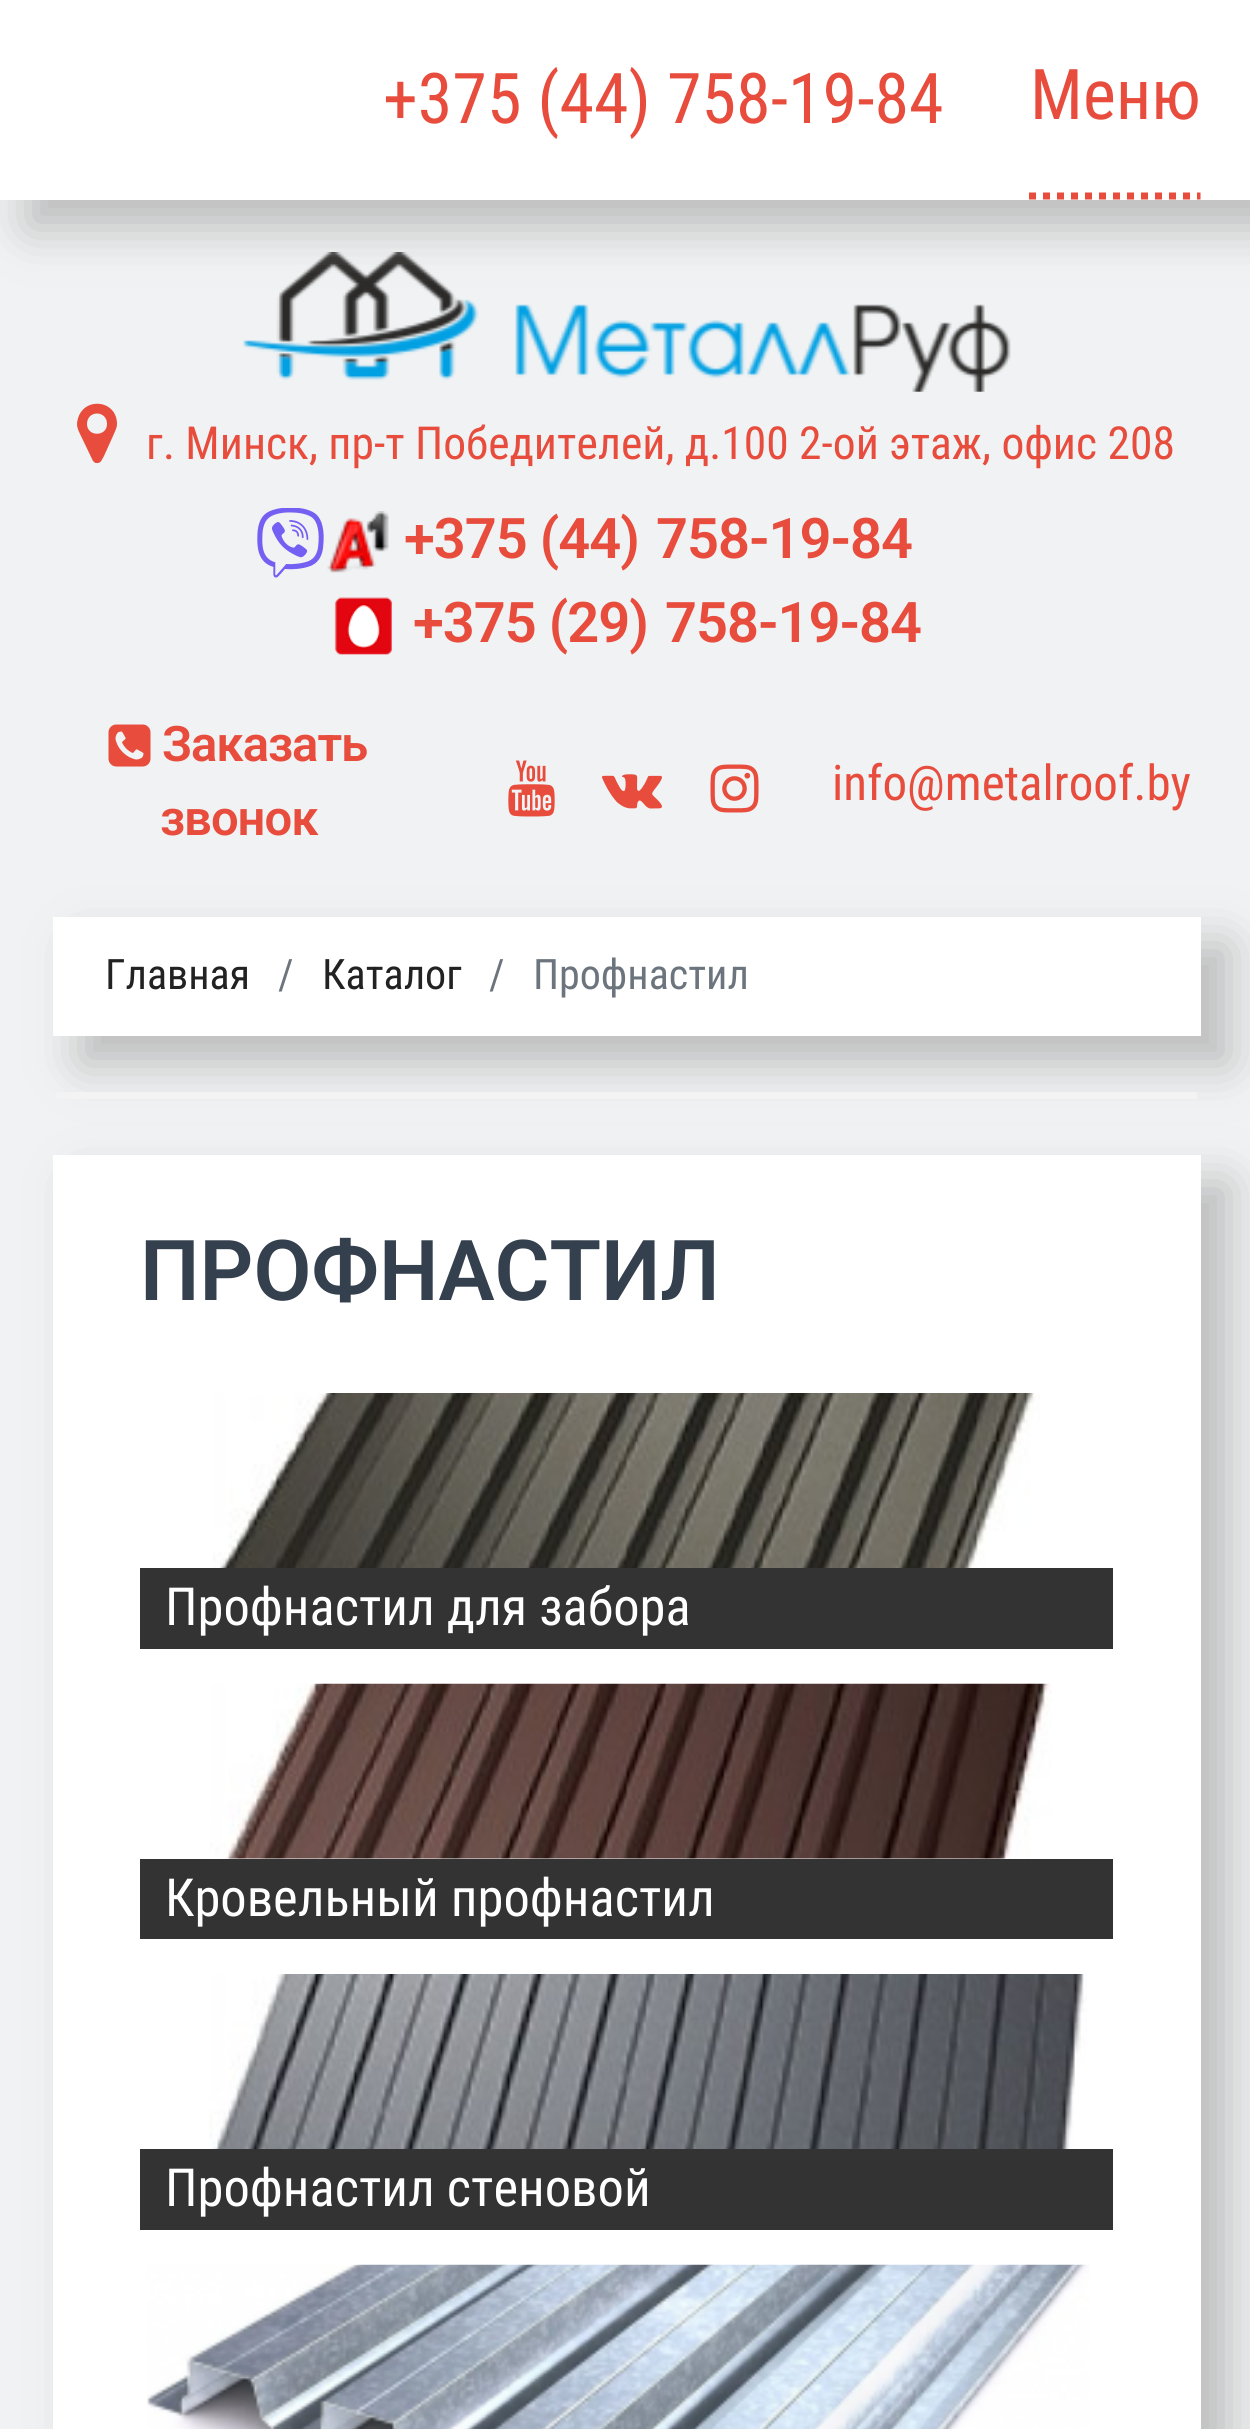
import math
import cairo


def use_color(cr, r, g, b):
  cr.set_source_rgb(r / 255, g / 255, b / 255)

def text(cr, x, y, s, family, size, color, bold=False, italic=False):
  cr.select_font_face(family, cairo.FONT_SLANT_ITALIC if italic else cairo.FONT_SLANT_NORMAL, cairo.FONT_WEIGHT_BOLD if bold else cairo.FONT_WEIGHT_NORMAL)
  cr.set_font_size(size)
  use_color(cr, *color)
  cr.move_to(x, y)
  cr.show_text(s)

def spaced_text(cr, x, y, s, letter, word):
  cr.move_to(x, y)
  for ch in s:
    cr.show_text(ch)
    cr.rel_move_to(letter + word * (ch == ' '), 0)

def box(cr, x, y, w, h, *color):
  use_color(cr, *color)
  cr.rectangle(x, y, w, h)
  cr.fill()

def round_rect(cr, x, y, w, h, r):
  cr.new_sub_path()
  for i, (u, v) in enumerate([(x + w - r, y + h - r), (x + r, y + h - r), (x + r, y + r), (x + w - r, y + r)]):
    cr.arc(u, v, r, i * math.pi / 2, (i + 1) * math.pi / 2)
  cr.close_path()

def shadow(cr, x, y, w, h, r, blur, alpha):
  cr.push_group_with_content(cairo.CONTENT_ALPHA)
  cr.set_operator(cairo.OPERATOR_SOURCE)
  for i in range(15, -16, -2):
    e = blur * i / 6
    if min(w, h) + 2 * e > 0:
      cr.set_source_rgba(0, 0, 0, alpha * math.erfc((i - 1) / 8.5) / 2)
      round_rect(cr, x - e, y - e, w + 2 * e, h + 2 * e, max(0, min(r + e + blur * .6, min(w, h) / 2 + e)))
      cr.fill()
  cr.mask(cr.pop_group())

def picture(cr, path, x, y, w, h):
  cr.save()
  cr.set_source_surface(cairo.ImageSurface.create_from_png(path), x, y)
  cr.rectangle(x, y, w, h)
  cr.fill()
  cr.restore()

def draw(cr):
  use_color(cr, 240, 242, 243)
  cr.paint()
  picture(cr, "img_01.png", 243, 252, 768, 140)
  use_color(cr, 187, 187, 187)
  shadow(cr, 28, 28, 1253, 200, 0, 24.5, 1)
  box(cr, 0, 0, 1250, 200, 255, 255, 255)
  cr.new_path()
  cr.move_to(1029, 196)
  cr.line_to(1200.5, 196)
  use_color(cr, 231, 76, 60)
  cr.set_line_width(7)
  cr.set_dash([7, 7])
  cr.stroke()
  cr.new_path()
  cr.move_to(107, 424)
  cr.curve_to(107, 437, 87, 437, 87, 424)
  cr.curve_to(87, 410, 107, 410, 107, 424)
  cr.close_path()
  cr.move_to(117, 424)
  cr.curve_to(117, 398, 79, 396, 77, 424)
  cr.curve_to(77, 428, 79, 432, 81, 436)
  cr.line_to(93, 461)
  cr.curve_to(94, 462, 95, 463, 96, 463)
  cr.curve_to(101, 464, 102, 459, 104, 456)
  cr.line_to(113, 436)
  cr.curve_to(115, 431, 117, 428, 117, 424)
  cr.close_path()
  cr.fill()
  picture(cr, "img_02.png", 257, 508, 67, 70)
  picture(cr, "img_03.png", 327, 511, 62, 62)
  picture(cr, "img_04.png", 334, 597, 58, 58)
  picture(cr, "img_05.png", 108, 724, 43, 43)
  picture(cr, "img_06.png", 508, 760, 47, 57)
  picture(cr, "img_07.png", 602, 774, 60, 35)
  picture(cr, "img_08.png", 710, 764, 49, 49)
  use_color(cr, 187, 187, 187)
  shadow(cr, 81, 945, 1148, 119, 0, 24.5, 1)
  box(cr, 53, 917, 1148, 119, 255, 255, 255)
  box(cr, 56, 1092, 1141, 7, 243, 243, 243)
  use_color(cr, 187, 187, 187)
  shadow(cr, 81, 1183, 1148, 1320, 0, 24.5, 1)
  box(cr, 53, 1155, 1148, 1274, 255, 255, 255)
  picture(cr, "img_09.png", 213, 1393, 827, 175)
  box(cr, 140, 1568, 973, 81, 51, 51, 51)
  picture(cr, "img_10.png", 210, 1683, 842, 176)
  box(cr, 140, 1859, 973, 80, 51, 51, 51)
  picture(cr, "img_11.png", 209, 1974, 878, 175)
  box(cr, 140, 2149, 973, 81, 51, 51, 51)
  picture(cr, "img_12.png", 147, 2264, 943, 165)
  text(cr, 383, 123, "+375 (44) 758-19-84", "Roboto Condensed", 70, (231, 76, 60))
  text(cr, 1030, 119, "Меню", "Roboto Condensed", 70, (231, 76, 60))
  text(cr, 146, 459, "г. Минск, пр-т Победителей, д.100 2-ой этаж, офис 208", "Roboto Condensed", 45.5, (231, 76, 60))
  cr.select_font_face("Roboto SemiBold")
  cr.set_font_size(56)
  spaced_text(cr, 404, 558, "+375 (44)", -1, 0)
  spaced_text(cr, 656, 558, "758-19-84", -1, 0)
  spaced_text(cr, 413, 642, "+375 (29)", -1, 0)
  spaced_text(cr, 665, 642, "758-19-84", -1, 0)
  cr.set_font_size(49)
  spaced_text(cr, 162, 761, "Заказать", -1, 0)
  spaced_text(cr, 160, 835, "звонок", -1, 0)
  text(cr, 832, 800, "info@metalroof.by", "Roboto Condensed", 49, (231, 76, 60))
  text(cr, 105, 989, "Главная", "Roboto Condensed", 42, (34, 34, 34))
  text(cr, 278, 989, "/", "Roboto Condensed", 42, (108, 117, 125))
  text(cr, 322, 989, "Каталог", "Roboto Condensed", 42, (34, 34, 34))
  text(cr, 489, 989, "/", "Roboto Condensed", 42, (108, 117, 125))
  text(cr, 533, 989, "Профнастил", "Roboto Condensed", 42, (108, 117, 125))
  text(cr, 140, 1300, "ПРОФНАСТИЛ", "Roboto SemiBold", 84, (52, 64, 78))
  text(cr, 165, 1625, "Профнастил для забора", "Roboto Condensed", 52.5, (255, 255, 255))
  text(cr, 165, 1916, "Кровельный профнастил", "Roboto Condensed", 52.5, (255, 255, 255))
  text(cr, 165, 2206, "Профнастил стеновой", "Roboto Condensed", 52.5, (255, 255, 255))


surface = cairo.ImageSurface(cairo.FORMAT_RGB24, 1250, 2429)
cr = cairo.Context(surface)
options = cairo.FontOptions()
options.set_hint_metrics(cairo.HINT_METRICS_OFF)
options.set_hint_style(cairo.HINT_STYLE_NONE)
cr.set_font_options(options)
cr.set_miter_limit(4)
draw(cr)
surface.write_to_png("out.png")
